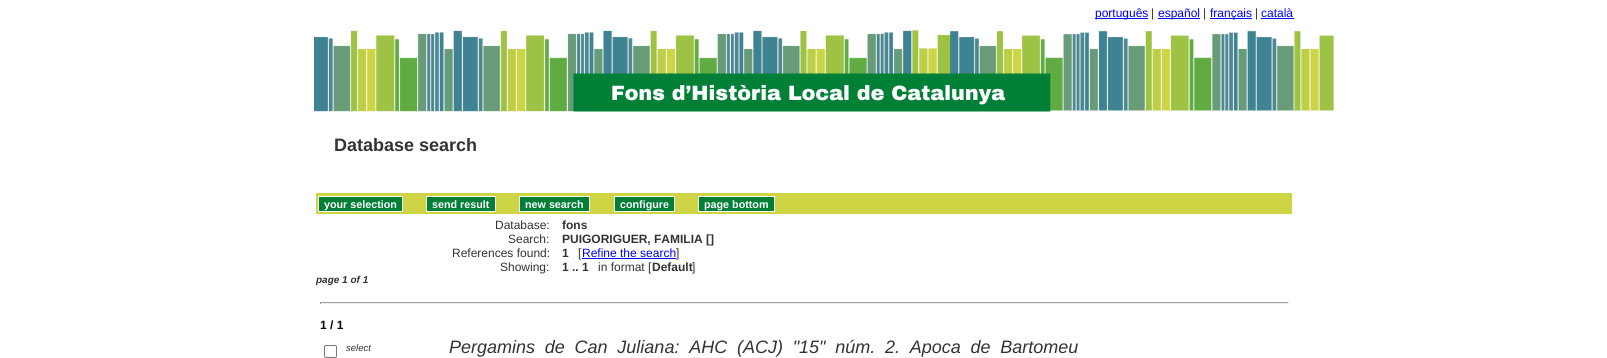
import math
import cairo


def use_color(cr, r, g, b):
  cr.set_source_rgb(r / 255, g / 255, b / 255)

def text(cr, x, y, s, family, size, color, bold=False, italic=False):
  cr.select_font_face(family, cairo.FONT_SLANT_ITALIC if italic else cairo.FONT_SLANT_NORMAL, cairo.FONT_WEIGHT_BOLD if bold else cairo.FONT_WEIGHT_NORMAL)
  cr.set_font_size(size)
  use_color(cr, *color)
  cr.move_to(x, y)
  cr.show_text(s)

def spaced_text(cr, x, y, s, letter, word):
  cr.move_to(x, y)
  for ch in s:
    cr.show_text(ch)
    cr.rel_move_to(letter + word * (ch == ' '), 0)

def box(cr, x, y, w, h, *color):
  use_color(cr, *color)
  cr.rectangle(x, y, w, h)
  cr.fill()

def round_rect(cr, x, y, w, h, r):
  cr.new_sub_path()
  for i, (u, v) in enumerate([(x + w - r, y + h - r), (x + r, y + h - r), (x + r, y + r), (x + w - r, y + r)]):
    cr.arc(u, v, r, i * math.pi / 2, (i + 1) * math.pi / 2)
  cr.close_path()

def picture(cr, path, x, y, w, h):
  cr.save()
  cr.set_source_surface(cairo.ImageSurface.create_from_png(path), x, y)
  cr.rectangle(x, y, w, h)
  cr.fill()
  cr.restore()

def draw(cr):
  use_color(cr, 255, 255, 255)
  cr.paint()
  box(cr, 1095, 18, 53, 1, 0, 0, 255)
  box(cr, 1158, 18, 42, 1, 0, 0, 255)
  box(cr, 1210, 18, 42, 1, 0, 0, 255)
  box(cr, 1261, 18, 33, 1, 0, 0, 255)
  picture(cr, "img_01.png", 314, 30, 1020, 82)
  box(cr, 316, 193, 976, 21, 205, 213, 69)
  use_color(cr, 0, 128, 55)
  cr.rectangle(318.5, 196.5, 84, 15)
  cr.fill_preserve()
  use_color(cr, 255, 255, 255)
  cr.set_line_width(1)
  cr.stroke()
  use_color(cr, 0, 128, 55)
  cr.rectangle(426.5, 196.5, 69, 15)
  cr.fill_preserve()
  use_color(cr, 255, 255, 255)
  cr.stroke()
  use_color(cr, 0, 128, 55)
  cr.rectangle(519.5, 196.5, 70, 15)
  cr.fill_preserve()
  use_color(cr, 255, 255, 255)
  cr.stroke()
  use_color(cr, 0, 128, 55)
  cr.rectangle(614.5, 196.5, 60, 15)
  cr.fill_preserve()
  use_color(cr, 255, 255, 255)
  cr.stroke()
  use_color(cr, 0, 128, 55)
  cr.rectangle(698.5, 196.5, 76, 15)
  cr.fill_preserve()
  use_color(cr, 255, 255, 255)
  cr.stroke()
  box(cr, 582, 258, 94, 1, 0, 0, 255)
  box(cr, 320, 302, 969, 1, 159, 159, 159)
  box(cr, 1288, 302, 1, 2, 238, 238, 238)
  box(cr, 320, 303, 969, 1, 238, 238, 238)
  box(cr, 320, 302, 1, 2, 159, 159, 159)
  round_rect(cr, 324.5, 345.5, 12, 12, 1.5)
  use_color(cr, 118, 118, 118)
  cr.stroke()
  text(cr, 1095, 17, "português", "Liberation Sans", 12, (0, 0, 255))
  text(cr, 1151, 17, "|", "Liberation Sans", 12, (51, 51, 51))
  text(cr, 1158, 17, "español", "Liberation Sans", 12, (0, 0, 255))
  text(cr, 1203, 17, "|", "Liberation Sans", 12, (51, 51, 51))
  text(cr, 1210, 17, "français", "Liberation Sans", 12, (0, 0, 255))
  text(cr, 1255, 17, "|", "Liberation Sans", 12, (51, 51, 51))
  text(cr, 1261, 17, "català", "Liberation Sans", 12, (0, 0, 255))
  text(cr, 334, 151, "Database search", "Liberation Sans", 18, (51, 51, 51), bold=True)
  text(cr, 324, 208, "your selection", "Liberation Sans", 10.75, (255, 255, 255), bold=True)
  text(cr, 432, 208, "send result", "Liberation Sans", 10.75, (255, 255, 255), bold=True)
  text(cr, 525, 208, "new search", "Liberation Sans", 10.75, (255, 255, 255), bold=True)
  text(cr, 620, 208, "configure", "Liberation Sans", 10.75, (255, 255, 255), bold=True)
  text(cr, 704, 208, "page bottom", "Liberation Sans", 10.75, (255, 255, 255), bold=True)
  text(cr, 495, 229, "Database:", "Liberation Sans", 12, (51, 51, 51))
  text(cr, 562, 229, "fons", "Liberation Sans", 12, (51, 51, 51), bold=True)
  text(cr, 508, 243, "Search:", "Liberation Sans", 12, (51, 51, 51))
  text(cr, 562, 243, "PUIGORIGUER, FAMILIA []", "Liberation Sans", 12, (51, 51, 51), bold=True)
  text(cr, 452, 257, "References found:", "Liberation Sans", 12, (51, 51, 51))
  text(cr, 562, 257, "1", "Liberation Sans", 12, (51, 51, 51), bold=True)
  text(cr, 578, 257, "[", "Liberation Sans", 12, (51, 51, 51))
  text(cr, 582, 257, "Refine the search", "Liberation Sans", 12, (0, 0, 255))
  text(cr, 676, 257, "]", "Liberation Sans", 12, (51, 51, 51))
  text(cr, 500, 271, "Showing:", "Liberation Sans", 12, (51, 51, 51))
  text(cr, 562, 271, "1 .. 1", "Liberation Sans", 12, (51, 51, 51), bold=True)
  text(cr, 598, 271, "in format [", "Liberation Sans", 12, (51, 51, 51))
  text(cr, 652, 271, "Default", "Liberation Sans", 12, (51, 51, 51), bold=True)
  text(cr, 692, 271, "]", "Liberation Sans", 12, (51, 51, 51))
  text(cr, 316, 283, "page 1 of 1", "Liberation Sans", 10, (51, 51, 51), bold=True, italic=True)
  text(cr, 320, 329, "1 / 1", "Liberation Sans", 12, (0, 0, 0), bold=True)
  text(cr, 346, 351, "select", "Liberation Sans", 9.5, (51, 51, 51), italic=True)
  cr.set_font_size(18)
  spaced_text(cr, 449, 353, "Pergamins de Can Juliana: AHC (ACJ) \"15\" núm. 2. Apoca de Bartomeu", 0, 4.75)


surface = cairo.ImageSurface(cairo.FORMAT_RGB24, 1607, 358)
cr = cairo.Context(surface)
options = cairo.FontOptions()
options.set_hint_metrics(cairo.HINT_METRICS_OFF)
options.set_hint_style(cairo.HINT_STYLE_NONE)
cr.set_font_options(options)
cr.set_miter_limit(4)
draw(cr)
surface.write_to_png("out.png")
